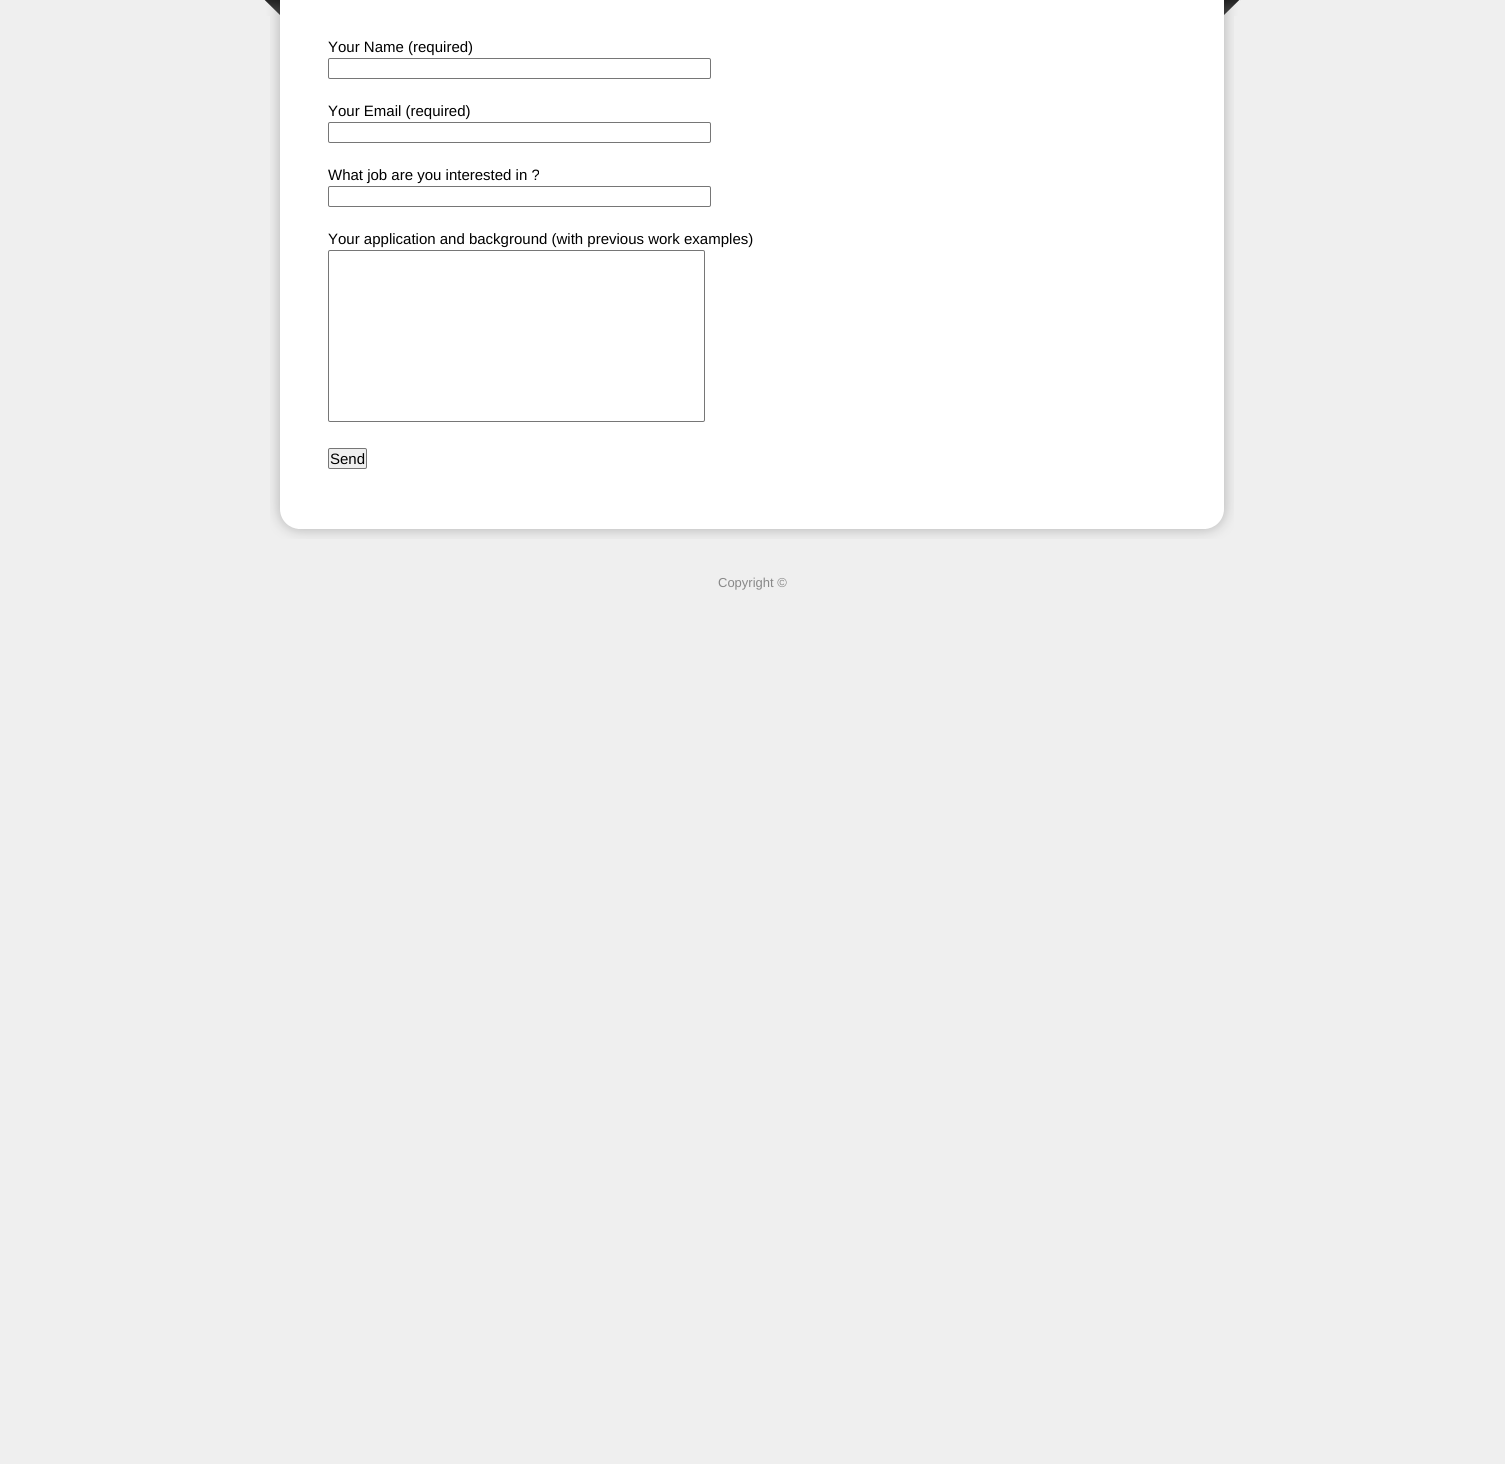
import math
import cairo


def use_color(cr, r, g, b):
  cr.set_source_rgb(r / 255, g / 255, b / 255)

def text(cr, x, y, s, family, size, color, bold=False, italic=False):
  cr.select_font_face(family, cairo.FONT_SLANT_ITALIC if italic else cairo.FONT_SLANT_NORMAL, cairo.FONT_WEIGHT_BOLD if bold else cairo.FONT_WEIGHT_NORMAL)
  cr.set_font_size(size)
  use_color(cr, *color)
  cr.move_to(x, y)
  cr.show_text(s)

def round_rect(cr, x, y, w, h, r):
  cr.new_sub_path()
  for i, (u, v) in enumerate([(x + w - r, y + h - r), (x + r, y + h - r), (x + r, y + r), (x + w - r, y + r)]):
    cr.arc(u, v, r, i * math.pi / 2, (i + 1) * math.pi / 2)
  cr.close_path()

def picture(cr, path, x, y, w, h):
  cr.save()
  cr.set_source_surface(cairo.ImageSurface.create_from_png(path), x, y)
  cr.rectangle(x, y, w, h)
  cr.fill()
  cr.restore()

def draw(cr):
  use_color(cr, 239, 239, 239)
  cr.paint()
  picture(cr, "img_01.png", 264, 0, 977, 16)
  picture(cr, "img_02.png", 270, 16, 964, 480)
  round_rect(cr, 328.5, 58.5, 382, 20, 1.5)
  use_color(cr, 118, 118, 118)
  cr.set_line_width(1)
  cr.stroke()
  round_rect(cr, 328.5, 122.5, 382, 20, 1.5)
  cr.stroke()
  round_rect(cr, 328.5, 186.5, 382, 20, 1.5)
  cr.stroke()
  round_rect(cr, 328.5, 250.5, 376, 171, 1.5)
  cr.stroke()
  use_color(cr, 239, 239, 239)
  round_rect(cr, 328.5, 448.5, 38, 20, 1.5)
  cr.fill_preserve()
  use_color(cr, 118, 118, 118)
  cr.stroke()
  picture(cr, "img_03.png", 270, 496, 964, 43)
  text(cr, 328, 52, "Your Name (required)", "Liberation Sans", 15, (0, 0, 0))
  text(cr, 328, 116, "Your Email (required)", "Liberation Sans", 15, (0, 0, 0))
  text(cr, 328, 180, "What job are you interested in ?", "Liberation Sans", 15, (0, 0, 0))
  text(cr, 328, 244, "Your application and background (with previous work examples)", "Liberation Sans", 15, (0, 0, 0))
  text(cr, 330, 464, "Send", "Liberation Sans", 15, (0, 0, 0))
  text(cr, 718, 587, "Copyright ©", "Liberation Sans", 13, (136, 136, 136))


surface = cairo.ImageSurface(cairo.FORMAT_RGB24, 1505, 1464)
cr = cairo.Context(surface)
options = cairo.FontOptions()
options.set_hint_metrics(cairo.HINT_METRICS_OFF)
options.set_hint_style(cairo.HINT_STYLE_NONE)
cr.set_font_options(options)
cr.set_miter_limit(4)
draw(cr)
surface.write_to_png("out.png")
